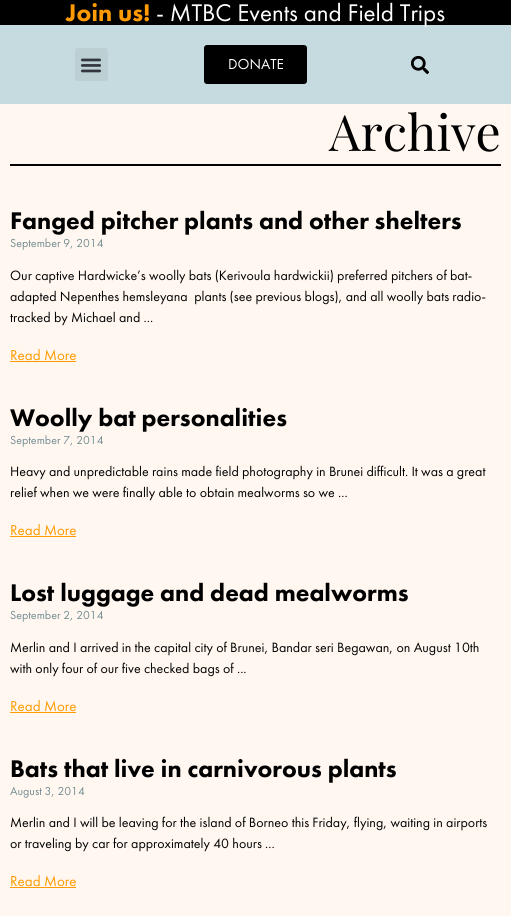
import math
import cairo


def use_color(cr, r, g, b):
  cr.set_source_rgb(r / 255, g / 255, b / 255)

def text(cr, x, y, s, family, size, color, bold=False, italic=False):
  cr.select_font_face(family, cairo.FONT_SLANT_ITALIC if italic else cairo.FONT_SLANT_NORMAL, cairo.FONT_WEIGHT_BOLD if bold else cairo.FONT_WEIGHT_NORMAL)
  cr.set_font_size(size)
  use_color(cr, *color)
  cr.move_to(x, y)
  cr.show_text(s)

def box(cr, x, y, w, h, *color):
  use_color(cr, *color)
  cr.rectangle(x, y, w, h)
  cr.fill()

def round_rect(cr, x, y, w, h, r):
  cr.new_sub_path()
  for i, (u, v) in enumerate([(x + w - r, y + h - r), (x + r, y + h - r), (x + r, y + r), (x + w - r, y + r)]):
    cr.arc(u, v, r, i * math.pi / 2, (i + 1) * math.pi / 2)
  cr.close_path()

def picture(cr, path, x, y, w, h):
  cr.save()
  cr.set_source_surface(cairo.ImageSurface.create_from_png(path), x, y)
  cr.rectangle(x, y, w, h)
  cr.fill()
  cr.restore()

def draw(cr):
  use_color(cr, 255, 247, 240)
  cr.paint()
  box(cr, 0, 25, 511, 79, 198, 219, 223)
  box(cr, 0, 0, 511, 25, 0, 0, 0)
  use_color(cr, 188, 208, 212)
  round_rect(cr, 75, 48, 33, 33, 3)
  cr.fill()
  picture(cr, "img_01.png", 80, 58, 21, 15)
  use_color(cr, 0, 0, 0)
  round_rect(cr, 204, 45, 103, 39, 3)
  cr.fill()
  picture(cr, "img_02.png", 411, 56, 18, 18)
  box(cr, 10, 164, 491, 2, 0, 0, 0)
  box(cr, 10, 361, 66, 1, 255, 154, 1)
  box(cr, 10, 536, 66, 1, 255, 154, 1)
  box(cr, 10, 712, 66, 1, 255, 154, 1)
  box(cr, 10, 887, 66, 1, 255, 154, 1)
  text(cr, 66, 21, "Join us!", "Futura PT Black", 25, (255, 154, 1))
  text(cr, 156, 21, "- MTBC Events and Field Trips", "Futura PT", 25, (255, 255, 255))
  text(cr, 228, 69, "DONATE", "Futura PT", 15, (255, 255, 255))
  text(cr, 329, 151, "Archive", "Playfair Display", 50, (0, 0, 0))
  text(cr, 10, 229, "Fanged pitcher plants and other shelters", "Futura PT Black", 25, (0, 0, 0))
  text(cr, 10, 247, "September 9, 2014", "Futura PT", 12, (115, 140, 145))
  text(cr, 10, 280, "Our captive Hardwicke’s woolly bats (Kerivoula hardwickii) preferred pitchers of bat-", "Futura PT", 14, (0, 0, 0))
  text(cr, 10, 301, "adapted Nepenthes hemsleyana  plants (see previous blogs), and all woolly bats radio-", "Futura PT", 14, (0, 0, 0))
  text(cr, 10, 322, "tracked by Michael and ...", "Futura PT", 14, (0, 0, 0))
  text(cr, 10, 360, "Read More", "Futura PT", 15, (255, 154, 1))
  text(cr, 10, 426, "Woolly bat personalities", "Futura PT Black", 25, (0, 0, 0))
  text(cr, 10, 444, "September 7, 2014", "Futura PT", 12, (115, 140, 145))
  text(cr, 10, 476, "Heavy and unpredictable rains made field photography in Brunei difficult. It was a great", "Futura PT", 14, (0, 0, 0))
  text(cr, 10, 497, "relief when we were finally able to obtain mealworms so we ...", "Futura PT", 14, (0, 0, 0))
  text(cr, 10, 535, "Read More", "Futura PT", 15, (255, 154, 1))
  text(cr, 10, 601, "Lost luggage and dead mealworms", "Futura PT Black", 25, (0, 0, 0))
  text(cr, 10, 619, "September 2, 2014", "Futura PT", 12, (115, 140, 145))
  text(cr, 10, 652, "Merlin and I arrived in the capital city of Brunei, Bandar seri Begawan, on August 10th", "Futura PT", 14, (0, 0, 0))
  text(cr, 10, 673, "with only four of our five checked bags of ...", "Futura PT", 14, (0, 0, 0))
  text(cr, 10, 711, "Read More", "Futura PT", 15, (255, 154, 1))
  text(cr, 10, 777, "Bats that live in carnivorous plants", "Futura PT Black", 25, (0, 0, 0))
  text(cr, 10, 795, "August 3, 2014", "Futura PT", 12, (115, 140, 145))
  text(cr, 10, 827, "Merlin and I will be leaving for the island of Borneo this Friday, flying, waiting in airports", "Futura PT", 14, (0, 0, 0))
  text(cr, 10, 848, "or traveling by car for approximately 40 hours ...", "Futura PT", 14, (0, 0, 0))
  text(cr, 10, 886, "Read More", "Futura PT", 15, (255, 154, 1))


surface = cairo.ImageSurface(cairo.FORMAT_RGB24, 511, 916)
cr = cairo.Context(surface)
options = cairo.FontOptions()
options.set_hint_metrics(cairo.HINT_METRICS_OFF)
options.set_hint_style(cairo.HINT_STYLE_NONE)
cr.set_font_options(options)
cr.set_miter_limit(4)
draw(cr)
surface.write_to_png("out.png")
